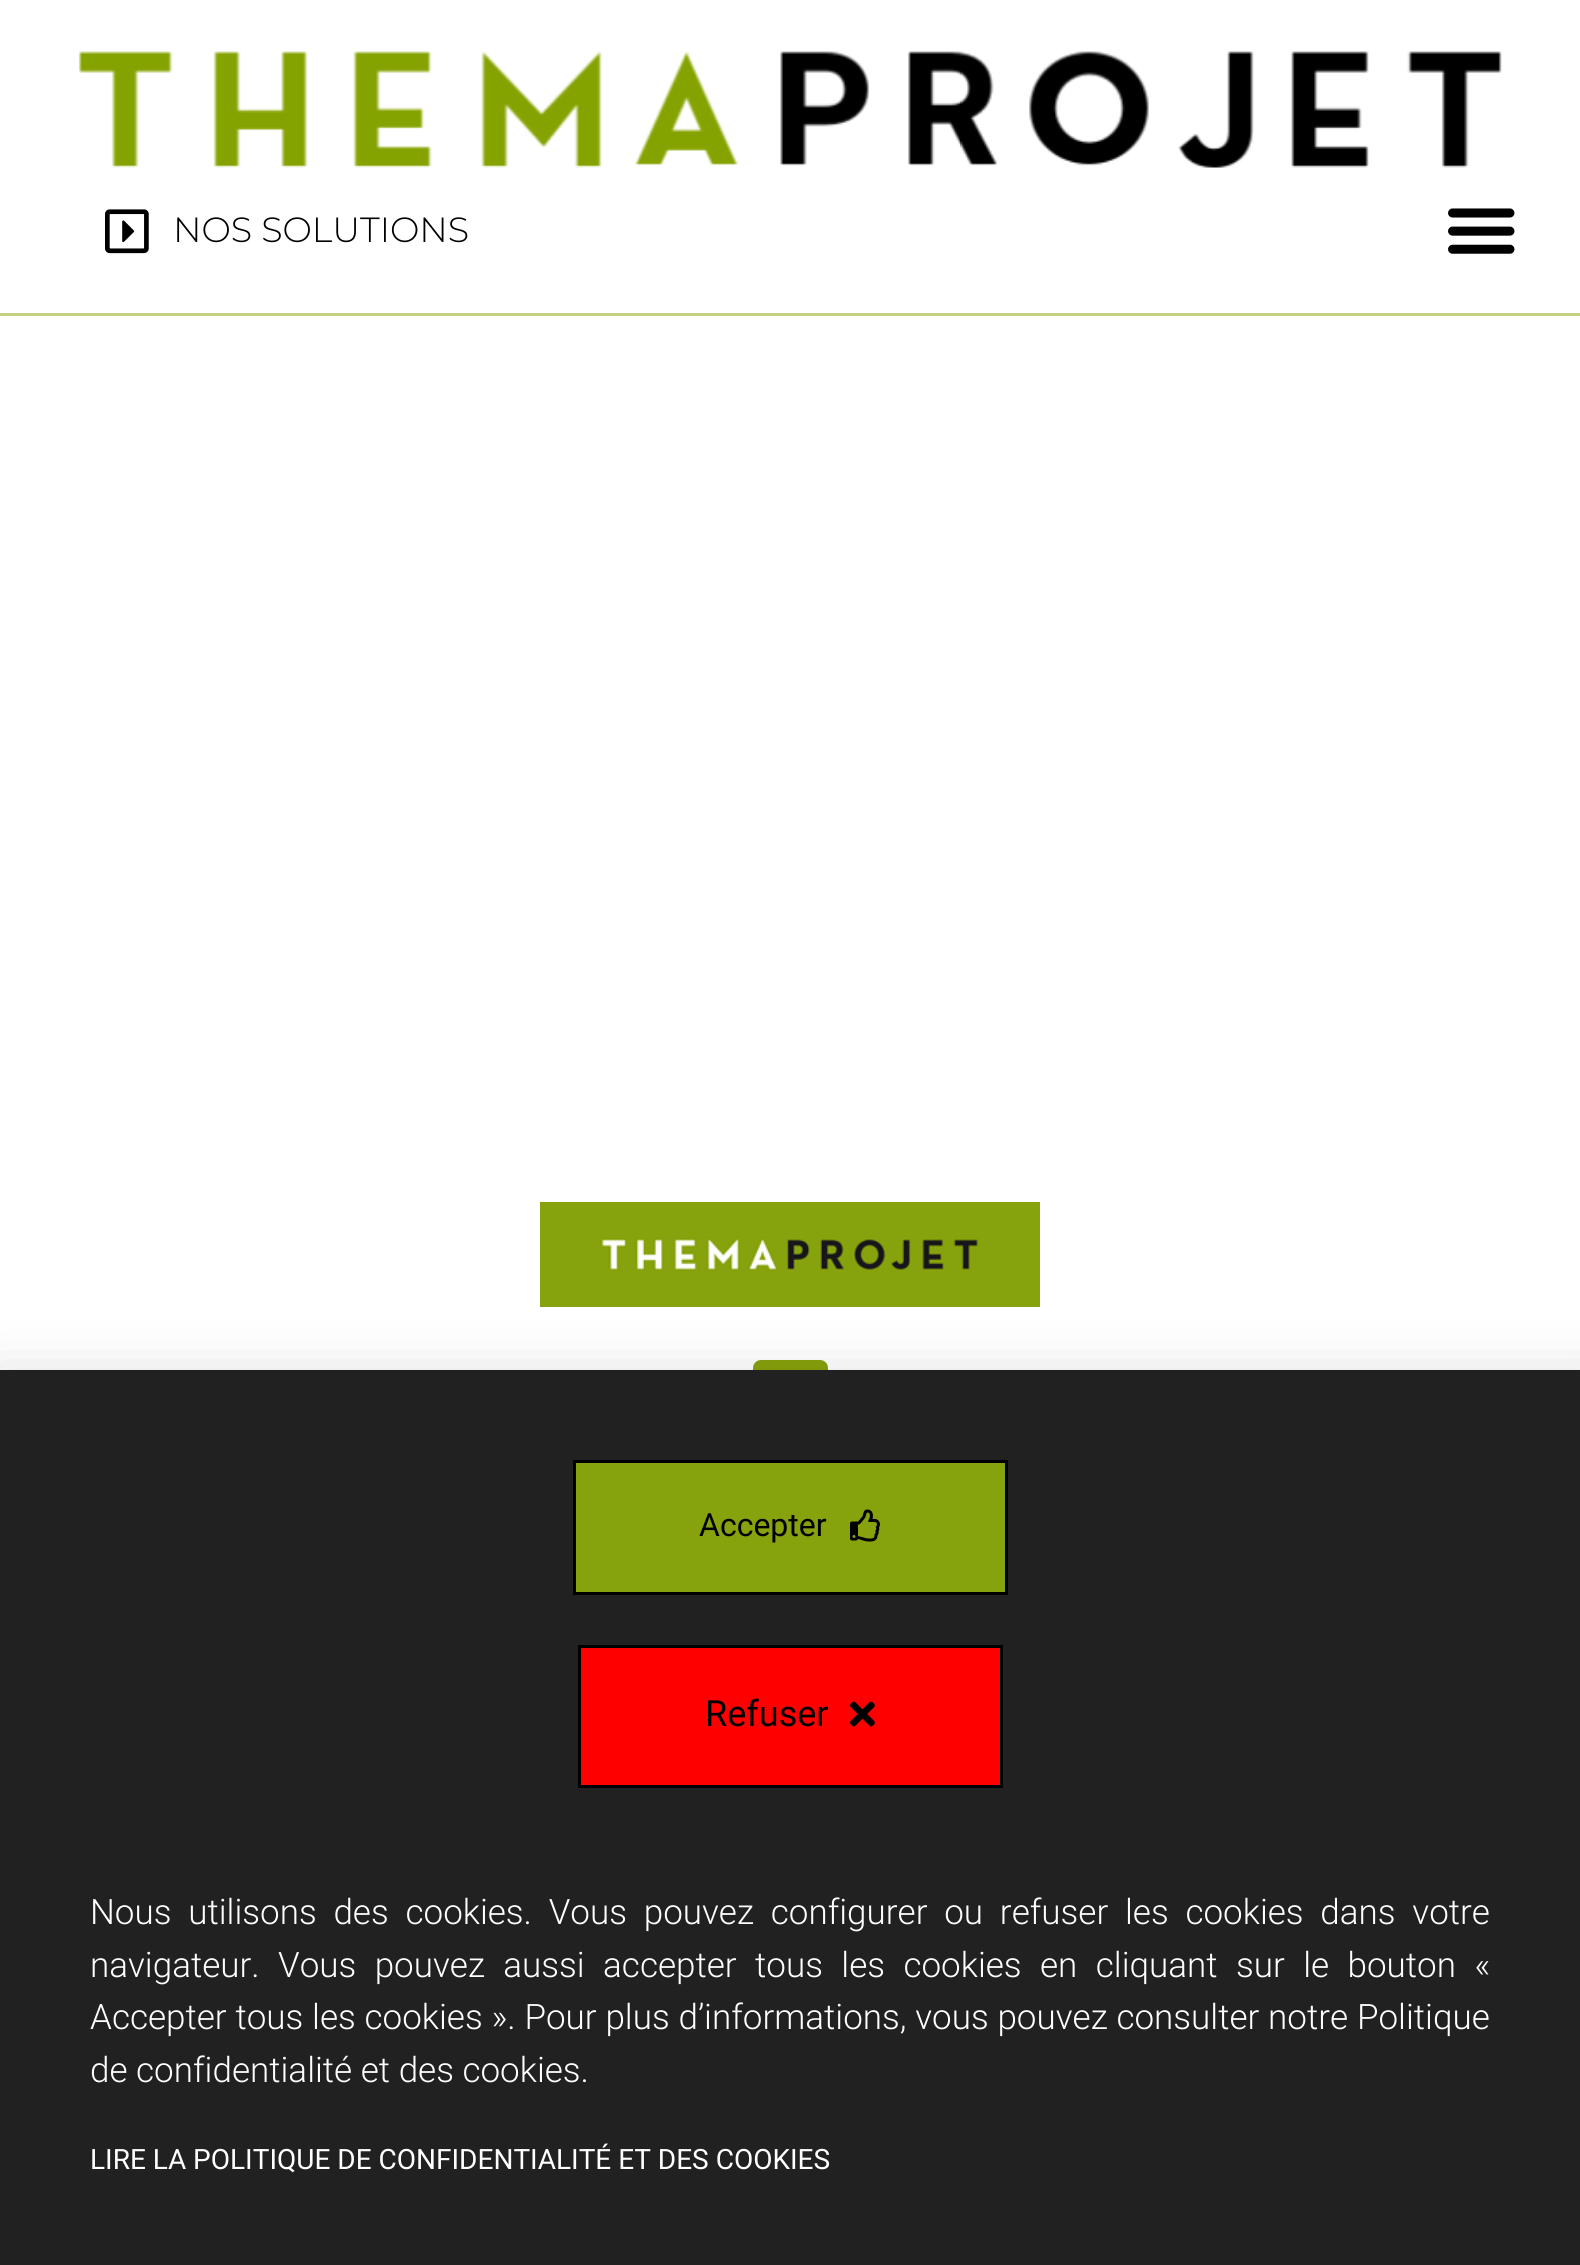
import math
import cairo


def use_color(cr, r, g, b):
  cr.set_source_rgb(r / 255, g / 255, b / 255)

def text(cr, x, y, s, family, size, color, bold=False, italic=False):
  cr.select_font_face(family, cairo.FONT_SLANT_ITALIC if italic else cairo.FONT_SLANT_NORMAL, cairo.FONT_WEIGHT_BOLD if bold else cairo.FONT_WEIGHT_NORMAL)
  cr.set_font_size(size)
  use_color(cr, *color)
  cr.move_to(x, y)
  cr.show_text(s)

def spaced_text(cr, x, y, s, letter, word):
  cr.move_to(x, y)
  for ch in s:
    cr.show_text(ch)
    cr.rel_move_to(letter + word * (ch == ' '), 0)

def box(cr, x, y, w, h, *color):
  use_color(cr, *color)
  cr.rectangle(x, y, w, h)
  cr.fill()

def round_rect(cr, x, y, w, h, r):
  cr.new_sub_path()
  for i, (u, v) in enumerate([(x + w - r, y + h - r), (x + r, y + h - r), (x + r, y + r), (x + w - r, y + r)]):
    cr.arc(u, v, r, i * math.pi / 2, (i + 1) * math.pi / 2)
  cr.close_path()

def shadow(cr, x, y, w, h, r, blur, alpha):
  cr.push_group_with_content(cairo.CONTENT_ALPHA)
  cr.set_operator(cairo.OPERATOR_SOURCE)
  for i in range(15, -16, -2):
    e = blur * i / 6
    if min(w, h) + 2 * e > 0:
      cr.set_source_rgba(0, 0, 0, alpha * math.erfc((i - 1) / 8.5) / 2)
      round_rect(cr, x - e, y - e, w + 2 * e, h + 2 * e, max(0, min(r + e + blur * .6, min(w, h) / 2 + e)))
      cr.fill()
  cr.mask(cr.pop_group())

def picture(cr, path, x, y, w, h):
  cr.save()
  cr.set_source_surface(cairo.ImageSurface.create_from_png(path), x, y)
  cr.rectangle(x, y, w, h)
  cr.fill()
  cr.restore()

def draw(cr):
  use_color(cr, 255, 255, 255)
  cr.paint()
  box(cr, 0, 313, 1580, 3, 195, 209, 134)
  picture(cr, "img_01.png", 78, 51, 1424, 117)
  picture(cr, "img_02.png", 105, 209, 44, 45)
  picture(cr, "img_03.png", 1448, 208, 67, 46)
  picture(cr, "img_04.png", 540, 1202, 500, 105)
  use_color(cr, 134, 162, 12)
  round_rect(cr, 753, 1360, 75, 75, 8)
  cr.fill()
  use_color(cr, 0, 0, 0)
  shadow(cr, -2, 1383, 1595, 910, 0, 29, 0.2)
  box(cr, 0, 1370, 1580, 895, 33, 33, 33)
  use_color(cr, 134, 162, 12)
  cr.rectangle(574.5, 1461.5, 432, 132)
  cr.fill_preserve()
  use_color(cr, 0, 0, 0)
  cr.set_line_width(3)
  cr.stroke()
  picture(cr, "img_05.png", 850, 1509, 30, 33)
  use_color(cr, 255, 0, 0)
  cr.rectangle(579.5, 1646.5, 422, 140)
  cr.fill_preserve()
  use_color(cr, 0, 0, 0)
  cr.stroke()
  picture(cr, "img_06.png", 850, 1701, 25, 26)
  text(cr, 173, 242, "NOS SOLUTIONS", "Montserrat Light", 35, (0, 0, 0))
  text(cr, 699, 1536, "Accepter", "Roboto", 32, (0, 0, 0))
  text(cr, 705, 1726, "Refuser", "Roboto", 36, (0, 0, 0))
  cr.select_font_face("Roboto Light")
  cr.set_font_size(35)
  use_color(cr, 255, 255, 255)
  spaced_text(cr, 90, 1924, "Nous utilisons des cookies. Vous pouvez configurer ou refuser les cookies dans votre", 0, 8.25)
  spaced_text(cr, 90, 1977, "navigateur. Vous pouvez aussi accepter tous les cookies en cliquant sur le bouton «", 0, 9.9)
  spaced_text(cr, 90, 2029, "Accepter tous les cookies ». Pour plus d’informations, vous pouvez consulter notre Politique", 0, 0.25)
  text(cr, 90, 2082, "de confidentialité et des cookies.", "Roboto Light", 35, (255, 255, 255))
  text(cr, 90, 2169, "LIRE LA POLITIQUE DE CONFIDENTIALITÉ ET DES COOKIES", "Roboto", 28, (255, 255, 255))


surface = cairo.ImageSurface(cairo.FORMAT_RGB24, 1580, 2265)
cr = cairo.Context(surface)
options = cairo.FontOptions()
options.set_hint_metrics(cairo.HINT_METRICS_OFF)
options.set_hint_style(cairo.HINT_STYLE_NONE)
cr.set_font_options(options)
cr.set_miter_limit(4)
draw(cr)
surface.write_to_png("out.png")
